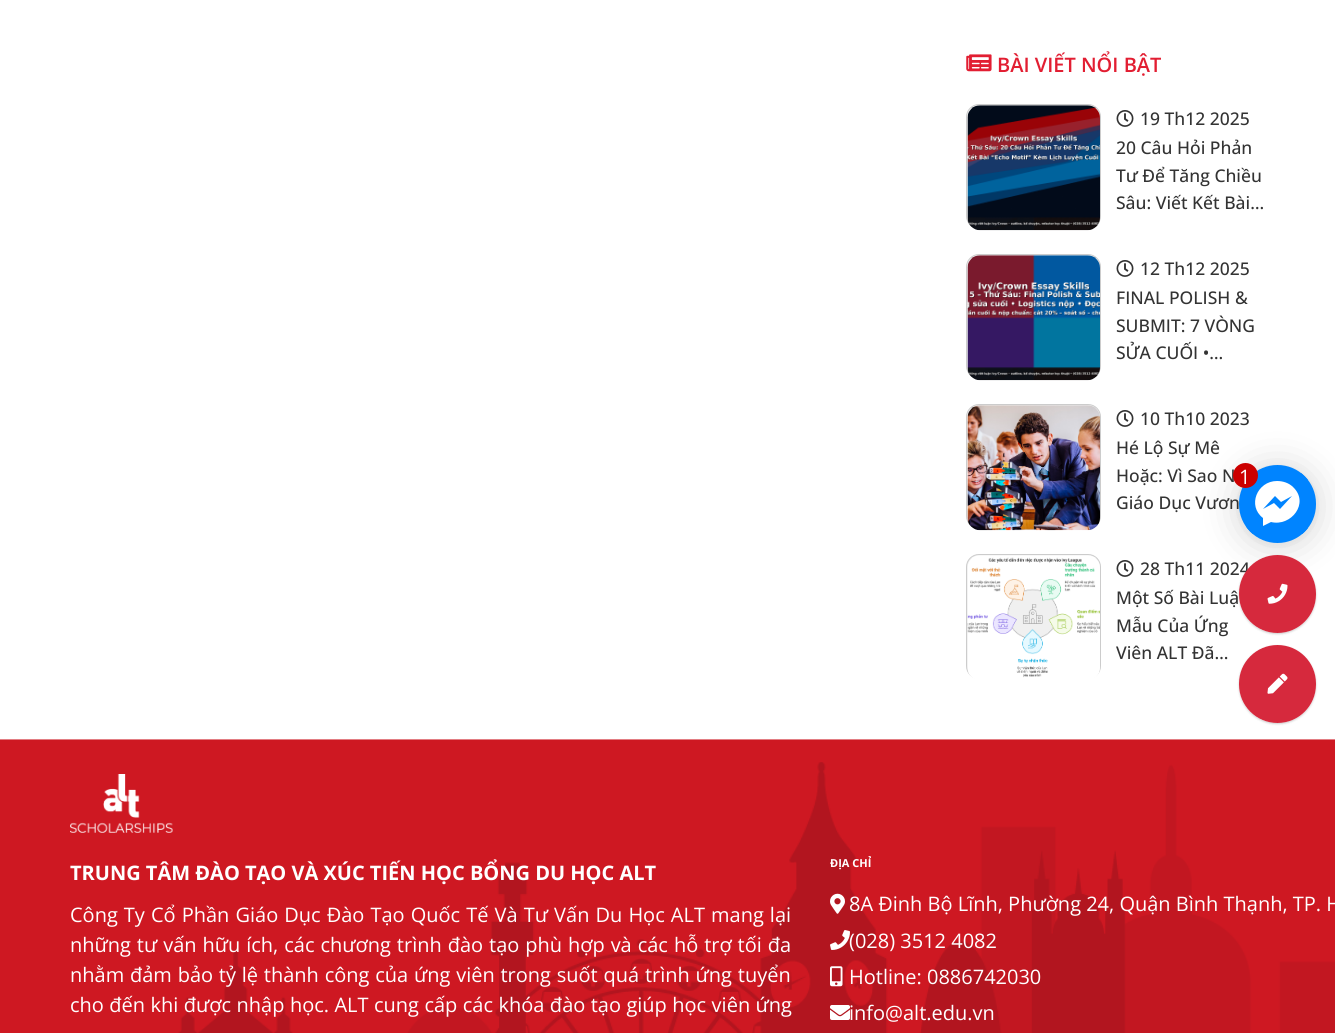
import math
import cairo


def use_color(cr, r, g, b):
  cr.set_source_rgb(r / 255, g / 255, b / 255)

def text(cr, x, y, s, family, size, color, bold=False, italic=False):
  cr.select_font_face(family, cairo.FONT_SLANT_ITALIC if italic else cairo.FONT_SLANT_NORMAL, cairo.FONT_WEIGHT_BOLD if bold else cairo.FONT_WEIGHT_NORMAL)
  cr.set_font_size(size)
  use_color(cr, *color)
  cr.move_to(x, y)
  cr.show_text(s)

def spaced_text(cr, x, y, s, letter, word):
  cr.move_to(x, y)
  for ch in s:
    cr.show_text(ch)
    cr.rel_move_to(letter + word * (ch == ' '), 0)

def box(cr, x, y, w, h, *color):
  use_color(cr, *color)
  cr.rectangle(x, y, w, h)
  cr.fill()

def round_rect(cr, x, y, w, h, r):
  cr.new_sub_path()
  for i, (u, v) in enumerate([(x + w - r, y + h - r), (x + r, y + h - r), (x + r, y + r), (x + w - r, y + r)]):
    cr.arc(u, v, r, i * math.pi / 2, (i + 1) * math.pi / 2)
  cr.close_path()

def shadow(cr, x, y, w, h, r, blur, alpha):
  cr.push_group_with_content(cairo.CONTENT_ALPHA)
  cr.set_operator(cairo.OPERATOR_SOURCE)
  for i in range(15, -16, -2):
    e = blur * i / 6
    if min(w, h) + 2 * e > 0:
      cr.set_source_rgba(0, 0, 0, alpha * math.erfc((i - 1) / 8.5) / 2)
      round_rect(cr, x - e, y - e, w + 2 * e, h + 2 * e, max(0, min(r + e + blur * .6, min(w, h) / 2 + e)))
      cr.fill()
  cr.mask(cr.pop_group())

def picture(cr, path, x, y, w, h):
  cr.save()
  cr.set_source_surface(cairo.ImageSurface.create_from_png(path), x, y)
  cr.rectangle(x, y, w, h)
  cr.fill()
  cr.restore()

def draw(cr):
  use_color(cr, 255, 255, 255)
  cr.paint()
  picture(cr, "img_01.png", 966, 54, 26, 18)
  use_color(cr, 239, 239, 239)
  round_rect(cr, 966.5, 104.5, 134, 124, 12.5)
  cr.fill_preserve()
  use_color(cr, 204, 204, 204)
  cr.set_line_width(1)
  cr.stroke()
  picture(cr, "img_02.png", 967, 105, 133, 126)
  picture(cr, "img_03.png", 1116, 110, 18, 17)
  use_color(cr, 239, 239, 239)
  round_rect(cr, 966.5, 254.5, 134, 124, 12.5)
  cr.fill_preserve()
  use_color(cr, 204, 204, 204)
  cr.stroke()
  picture(cr, "img_04.png", 967, 255, 133, 126)
  picture(cr, "img_03.png", 1116, 260, 18, 17)
  use_color(cr, 239, 239, 239)
  round_rect(cr, 966.5, 404.5, 134, 124, 12.5)
  cr.fill_preserve()
  use_color(cr, 204, 204, 204)
  cr.stroke()
  picture(cr, "img_05.png", 967, 405, 133, 126)
  picture(cr, "img_03.png", 1116, 410, 18, 17)
  use_color(cr, 239, 239, 239)
  round_rect(cr, 966.5, 554.5, 134, 124, 12.5)
  cr.fill_preserve()
  use_color(cr, 204, 204, 204)
  cr.stroke()
  picture(cr, "img_06.png", 967, 555, 133, 124)
  picture(cr, "img_03.png", 1116, 560, 18, 17)
  use_color(cr, 0, 0, 0)
  shadow(cr, 1239, 468, 77, 77, 38.5, 20, 0.16)
  shadow(cr, 1239, 466, 77, 78, 38.5, 4, 0.06)
  use_color(cr, 0, 132, 255)
  round_rect(cr, 1239, 465, 77, 78, 38.5)
  cr.fill()
  cr.save()
  round_rect(cr, 1239, 465, 77, 78, 38.5)
  cr.clip()
  box(cr, 1246, 473, 62, 61, 0, 132, 255)
  cr.restore()
  use_color(cr, 255, 255, 255)
  cr.new_path()
  cr.move_to(1277, 481)
  cr.curve_to(1257, 481, 1247, 506, 1263, 518)
  cr.line_to(1263, 526)
  cr.line_to(1271, 522)
  cr.curve_to(1291, 527, 1310, 503, 1293, 487)
  cr.curve_to(1289, 483, 1283, 481, 1277, 481)
  cr.close_path()
  cr.move_to(1280, 509)
  cr.line_to(1274, 503)
  cr.line_to(1263, 509)
  cr.line_to(1275, 496)
  cr.line_to(1281, 502)
  cr.line_to(1292, 496)
  cr.close_path()
  cr.fill()
  use_color(cr, 214, 41, 61)
  round_rect(cr, 1239, 645, 77, 78, 38.5)
  cr.fill()
  cr.save()
  cr.set_fill_rule(cairo.FILL_RULE_EVEN_ODD)
  cr.new_path()
  cr.move_to(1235, 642)
  cr.line_to(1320, 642)
  cr.line_to(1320, 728)
  cr.line_to(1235, 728)
  cr.close_path()
  cr.move_to(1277.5, 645)
  cr.curve_to(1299, 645, 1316, 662, 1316, 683.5)
  cr.line_to(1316, 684.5)
  cr.curve_to(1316, 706, 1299, 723, 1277.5, 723)
  cr.curve_to(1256, 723, 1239, 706, 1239, 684.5)
  cr.line_to(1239, 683.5)
  cr.curve_to(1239, 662, 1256, 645, 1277.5, 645)
  cr.close_path()
  cr.clip()
  use_color(cr, 0, 0, 0)
  shadow(cr, 1239, 646, 77, 78, 38.5, 1, 0.2)
  cr.restore()
  picture(cr, "img_08.png", 1267, 673, 21, 21)
  picture(cr, "img_09.png", 0, 739, 1335, 294)
  picture(cr, "img_10.png", 70, 774, 103, 59)
  picture(cr, "img_11.png", 830, 893, 15, 21)
  picture(cr, "img_12.png", 830, 930, 20, 20)
  picture(cr, "img_13.png", 830, 966, 13, 21)
  picture(cr, "img_14.png", 830, 1005, 20, 15)
  text(cr, 997, 72, "BÀI VIẾT NỔI BẬT", "Open Sans SemiBold", 20, (226, 30, 50))
  text(cr, 1140, 125, "19 Th12 2025", "Open Sans Medium", 17.5, (51, 51, 51))
  text(cr, 1116, 154, "20 Câu Hỏi Phản", "Open Sans Medium", 17.5, (51, 51, 51))
  text(cr, 1116, 182, "Tư Để Tăng Chiều", "Open Sans Medium", 17.5, (51, 51, 51))
  text(cr, 1116, 209, "Sâu: Viết Kết Bài…", "Open Sans Medium", 17.5, (51, 51, 51))
  text(cr, 1140, 275, "12 Th12 2025", "Open Sans Medium", 17.5, (51, 51, 51))
  text(cr, 1116, 304, "FINAL POLISH &", "Open Sans Medium", 17.5, (51, 51, 51))
  text(cr, 1116, 332, "SUBMIT: 7 VÒNG", "Open Sans Medium", 17.5, (51, 51, 51))
  text(cr, 1116, 359, "SỬA CUỐI •…", "Open Sans Medium", 17.5, (51, 51, 51))
  text(cr, 1140, 425, "10 Th10 2023", "Open Sans Medium", 17.5, (51, 51, 51))
  text(cr, 1116, 454, "Hé Lộ Sự Mê", "Open Sans Medium", 17.5, (51, 51, 51))
  text(cr, 1116, 482, "Hoặc: Vì Sao N", "Open Sans Medium", 17.5, (51, 51, 51))
  text(cr, 1116, 509, "Giáo Dục Vươn", "Open Sans Medium", 17.5, (51, 51, 51))
  text(cr, 1140, 575, "28 Th11 2024", "Open Sans Medium", 17.5, (51, 51, 51))
  text(cr, 1116, 604, "Một Số Bài Luậ", "Open Sans Medium", 17.5, (51, 51, 51))
  text(cr, 1116, 632, "Mẫu Của Ứng", "Open Sans Medium", 17.5, (51, 51, 51))
  text(cr, 1116, 659, "Viên ALT Đã…", "Open Sans Medium", 17.5, (51, 51, 51))
  use_color(cr, 204, 0, 0)
  cr.new_path()
  cr.arc(1245.5, 475.5, 12.5, 0, 2 * math.pi)
  cr.fill()
  text(cr, 1239, 484, "1", "Open Sans", 20, (255, 255, 255))
  use_color(cr, 214, 41, 61)
  round_rect(cr, 1239, 555, 77, 78, 38.5)
  cr.fill()
  cr.save()
  cr.set_fill_rule(cairo.FILL_RULE_EVEN_ODD)
  cr.new_path()
  cr.move_to(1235, 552)
  cr.line_to(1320, 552)
  cr.line_to(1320, 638)
  cr.line_to(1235, 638)
  cr.close_path()
  cr.move_to(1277.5, 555)
  cr.curve_to(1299, 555, 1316, 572, 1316, 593.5)
  cr.line_to(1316, 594.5)
  cr.curve_to(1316, 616, 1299, 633, 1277.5, 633)
  cr.curve_to(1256, 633, 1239, 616, 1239, 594.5)
  cr.line_to(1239, 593.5)
  cr.curve_to(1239, 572, 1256, 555, 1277.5, 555)
  cr.close_path()
  cr.clip()
  use_color(cr, 0, 0, 0)
  shadow(cr, 1239, 556, 77, 78, 38.5, 1, 0.2)
  cr.restore()
  picture(cr, "img_07.png", 1267, 583, 21, 21)
  text(cr, 70, 880, "TRUNG TÂM ĐÀO TẠO VÀ XÚC TIẾN HỌC BỔNG DU HỌC ALT", "Open Sans", 20, (255, 255, 255), bold=True)
  cr.select_font_face("Open Sans")
  spaced_text(cr, 70, 922, "Công Ty Cổ Phần Giáo Dục Đào Tạo Quốc Tế Và Tư Vấn Du Học ALT mang lại", 0, 0.9)
  spaced_text(cr, 70, 952, "những tư vấn hữu ích, các chương trình đào tạo phù hợp và các hỗ trợ tối đa", 0, 0.75)
  spaced_text(cr, 70, 982, "nhằm đảm bảo tỷ lệ thành công của ứng viên trong suốt quá trình ứng tuyển", 0, 0.6)
  spaced_text(cr, 70, 1012, "cho đến khi được nhập học. ALT cung cấp các khóa đào tạo giúp học viên ứng", 0, 0.25)
  text(cr, 830, 867, "ĐỊA CHỈ", "Open Sans", 11, (255, 255, 255), bold=True)
  text(cr, 849, 911, "8A Đinh Bộ Lĩnh, Phường 24, Quận Bình Thạnh, TP. H", "Open Sans", 20, (255, 255, 255))
  text(cr, 849, 948, "(028) 3512 4082", "Open Sans", 20, (255, 255, 255))
  text(cr, 849, 984, "Hotline: 0886742030", "Open Sans", 20, (255, 255, 255))
  text(cr, 849, 1020, "info@alt.edu.vn", "Open Sans", 20, (255, 255, 255))


surface = cairo.ImageSurface(cairo.FORMAT_RGB24, 1335, 1033)
cr = cairo.Context(surface)
options = cairo.FontOptions()
options.set_hint_metrics(cairo.HINT_METRICS_OFF)
options.set_hint_style(cairo.HINT_STYLE_NONE)
cr.set_font_options(options)
cr.set_miter_limit(4)
draw(cr)
surface.write_to_png("out.png")
